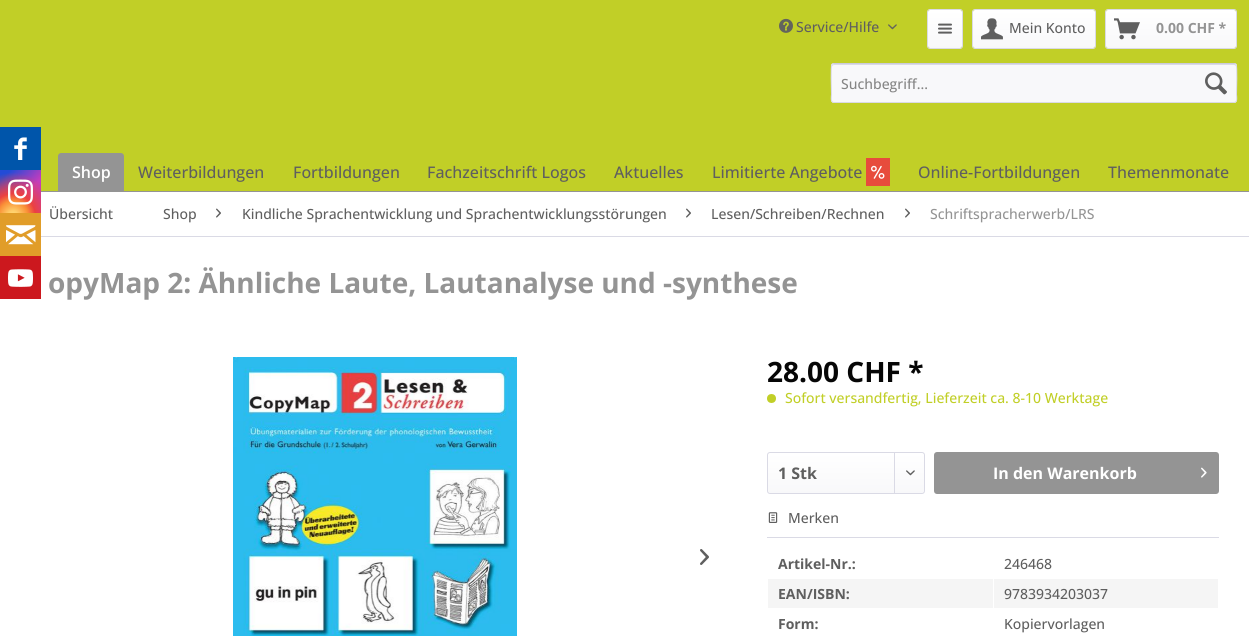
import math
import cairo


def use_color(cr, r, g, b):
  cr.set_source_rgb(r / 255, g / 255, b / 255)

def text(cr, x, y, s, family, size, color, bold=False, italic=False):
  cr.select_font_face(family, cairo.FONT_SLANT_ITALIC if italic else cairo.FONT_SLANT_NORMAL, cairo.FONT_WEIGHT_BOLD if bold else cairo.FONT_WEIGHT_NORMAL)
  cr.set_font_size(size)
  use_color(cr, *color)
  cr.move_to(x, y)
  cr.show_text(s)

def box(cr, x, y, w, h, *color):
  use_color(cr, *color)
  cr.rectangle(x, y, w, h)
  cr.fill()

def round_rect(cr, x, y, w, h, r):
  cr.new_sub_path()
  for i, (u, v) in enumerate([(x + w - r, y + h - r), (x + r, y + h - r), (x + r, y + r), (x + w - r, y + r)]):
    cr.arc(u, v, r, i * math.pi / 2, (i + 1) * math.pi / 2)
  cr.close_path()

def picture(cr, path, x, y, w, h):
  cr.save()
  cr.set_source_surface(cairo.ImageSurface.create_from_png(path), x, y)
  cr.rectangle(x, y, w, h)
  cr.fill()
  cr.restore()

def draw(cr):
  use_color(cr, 193, 207, 39)
  cr.paint()
  box(cr, 0, 127, 41, 43, 0, 85, 170)
  picture(cr, "img_01.png", 14, 137, 13, 23)
  box(cr, 0, 192, 1249, 444, 255, 255, 255)
  gradient = cairo.LinearGradient(-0.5, 171, 42, 213)
  gradient.add_color_stop_rgba(0.12, 0.137, 0.294, 0.843, 1)
  gradient.add_color_stop_rgba(0.58, 0.765, 0.235, 0.745, 1)
  cr.set_source(gradient)
  cr.rectangle(0, 170, 41, 43)
  cr.fill()
  gradient = cairo.RadialGradient(13, 216, 0, 13, 216, 53)
  gradient.add_color_stop_rgba(0, 1, 0.882, 0.49, 1)
  gradient.add_color_stop_rgba(0.1, 1, 0.804, 0.412, 1)
  gradient.add_color_stop_rgba(0.28, 0.98, 0.569, 0.216, 1)
  gradient.add_color_stop_rgba(0.42, 0.922, 0.255, 0.255, 1)
  gradient.add_color_stop_rgba(0.82, 0.922, 0.255, 0.255, 0)
  cr.set_source(gradient)
  cr.rectangle(0, 173, 41, 40)
  cr.fill()
  picture(cr, "img_02.png", 8, 179, 25, 26)
  box(cr, 0, 213, 41, 43, 225, 157, 41)
  picture(cr, "img_03.png", 6, 225, 30, 20)
  box(cr, 0, 256, 41, 43, 204, 24, 30)
  picture(cr, "img_04.png", 8, 269, 25, 18)
  picture(cr, "img_05.png", 779, 18, 14, 15)
  picture(cr, "img_06.png", 888, 24, 9, 6)
  gradient = cairo.LinearGradient(945, 10, 945, 48)
  gradient.add_color_stop_rgba(0, 1, 1, 1, 1)
  gradient.add_color_stop_rgba(1, 0.973, 0.973, 0.98, 1)
  cr.set_source(gradient)
  round_rect(cr, 928, 10, 34, 38, 2)
  cr.fill()
  round_rect(cr, 927.5, 9.5, 35, 39, 2.5)
  use_color(cr, 218, 218, 229)
  cr.set_line_width(1)
  cr.stroke()
  picture(cr, "img_07.png", 938, 23, 14, 11)
  gradient = cairo.LinearGradient(1034, 10, 1034, 48)
  gradient.add_color_stop_rgba(0, 1, 1, 1, 1)
  gradient.add_color_stop_rgba(1, 0.973, 0.973, 0.98, 1)
  cr.set_source(gradient)
  round_rect(cr, 973, 10, 122, 38, 2)
  cr.fill()
  round_rect(cr, 972.5, 9.5, 123, 39, 2.5)
  use_color(cr, 218, 218, 229)
  cr.stroke()
  picture(cr, "img_08.png", 981, 18, 22, 22)
  gradient = cairo.LinearGradient(1171, 10, 1171, 48)
  gradient.add_color_stop_rgba(0, 1, 1, 1, 1)
  gradient.add_color_stop_rgba(1, 0.973, 0.973, 0.98, 1)
  cr.set_source(gradient)
  round_rect(cr, 1106, 10, 130, 38, 2)
  cr.fill()
  round_rect(cr, 1105.5, 9.5, 131, 39, 2.5)
  use_color(cr, 218, 218, 229)
  cr.stroke()
  picture(cr, "img_09.png", 1114, 18, 26, 22)
  use_color(cr, 248, 248, 250)
  round_rect(cr, 831, 63, 406, 40, 3)
  cr.fill()
  use_color(cr, 218, 218, 229)
  cr.new_path()
  cr.move_to(834, 65)
  cr.line_to(1234, 65)
  cr.curve_to(1235, 65, 1236, 66, 1236, 67)
  cr.curve_to(1236, 66, 1236, 65, 1235, 64)
  cr.line_to(834, 64)
  cr.line_to(832, 65)
  cr.line_to(832, 67)
  cr.curve_to(832, 66, 833, 65, 834, 65)
  cr.close_path()
  cr.fill()
  cr.new_path()
  cr.move_to(832, 64)
  cr.line_to(834, 63.5)
  cr.line_to(1234, 63.5)
  cr.line_to(1236, 64)
  use_color(cr, 203, 203, 219)
  cr.stroke()
  cr.new_path()
  cr.move_to(1236, 64)
  cr.curve_to(1237.5, 66, 1236.5, 90, 1236.5, 94.5)
  cr.curve_to(1236.5, 96, 1238, 102.5, 1234, 102.5)
  cr.line_to(834, 102.5)
  cr.curve_to(830, 102.5, 831.5, 96, 831.5, 94.5)
  cr.curve_to(831.5, 90, 830.5, 66, 832, 64)
  use_color(cr, 218, 218, 229)
  cr.stroke()
  picture(cr, "img_10.png", 1205, 72, 22, 23)
  box(cr, 41, 191, 1208, 1, 148, 148, 148)
  cr.new_path()
  cr.move_to(61, 153)
  cr.line_to(121, 153)
  cr.curve_to(122.5, 153, 124, 154.5, 124, 156)
  cr.line_to(124, 191)
  cr.line_to(58, 191)
  cr.line_to(58, 156)
  cr.curve_to(58, 154.5, 59.5, 153, 61, 153)
  cr.close_path()
  cr.fill()
  box(cr, 866, 158, 24, 28, 231, 76, 60)
  picture(cr, "img_11.png", 871, 165, 14, 14)
  box(cr, 41, 236, 1208, 1, 218, 218, 229)
  picture(cr, "img_12.png", 216, 208, 5, 10)
  picture(cr, "img_12.png", 686, 208, 5, 10)
  picture(cr, "img_12.png", 905, 208, 5, 10)
  picture(cr, "img_13.png", 233, 357, 284, 279)
  picture(cr, "img_14.png", 700, 549, 9, 16)
  use_color(cr, 193, 207, 39)
  cr.arc(771.5, 398.5, 4.5, 0, 2 * math.pi)
  cr.fill()
  gradient = cairo.LinearGradient(846, 453, 846, 493)
  gradient.add_color_stop_rgba(0, 1, 1, 1, 1)
  gradient.add_color_stop_rgba(1, 0.973, 0.973, 0.98, 1)
  cr.set_source(gradient)
  round_rect(cr, 768, 453, 156, 40, 2)
  cr.fill()
  round_rect(cr, 767.5, 452.5, 157, 41, 2.5)
  use_color(cr, 218, 218, 229)
  cr.stroke()
  box(cr, 894, 453, 1, 40, 218, 218, 229)
  picture(cr, "img_15.png", 906, 470, 9, 6)
  use_color(cr, 148, 148, 148)
  round_rect(cr, 934, 452, 285, 42, 3)
  cr.fill()
  picture(cr, "img_16.png", 1201, 467, 6, 11)
  box(cr, 767, 537, 452, 1, 218, 218, 229)
  picture(cr, "img_17.png", 768, 512, 10, 11)
  box(cr, 768, 579, 225, 29, 245, 245, 245)
  box(cr, 994, 579, 224, 29, 245, 245, 245)
  text(cr, 796, 32, "Service/Hilfe", "Open Sans Medium", 14, (95, 95, 95))
  text(cr, 1009, 33, "Mein Konto", "Open Sans Medium", 14, (95, 95, 95))
  text(cr, 1156, 33, "0.00 CHF *", "Open Sans", 14, (148, 148, 148), bold=True)
  text(cr, 841, 89, "Suchbegriff...", "Open Sans Medium", 14, (133, 133, 133))
  text(cr, 72, 178, "Shop", "Open Sans SemiBold", 16, (255, 255, 255))
  text(cr, 138, 178, "Weiterbildungen", "Open Sans Medium", 16, (95, 95, 95))
  text(cr, 293, 178, "Fortbildungen", "Open Sans Medium", 16, (95, 95, 95))
  text(cr, 427, 178, "Fachzeitschrift Logos", "Open Sans Medium", 16, (95, 95, 95))
  text(cr, 614, 178, "Aktuelles", "Open Sans Medium", 16, (95, 95, 95))
  text(cr, 712, 178, "Limitierte Angebote", "Open Sans Medium", 16, (95, 95, 95))
  text(cr, 918, 178, "Online-Fortbildungen", "Open Sans Medium", 16, (95, 95, 95))
  text(cr, 1108, 178, "Themenmonate", "Open Sans Medium", 16, (95, 95, 95))
  text(cr, 49, 219, "Übersicht", "Open Sans Medium", 14, (95, 95, 95))
  text(cr, 163, 219, "Shop", "Open Sans Medium", 14, (95, 95, 95))
  text(cr, 242, 219, "Kindliche Sprachentwicklung und Sprachentwicklungsstörungen", "Open Sans Medium", 14, (95, 95, 95))
  text(cr, 711, 219, "Lesen/Schreiben/Rechnen", "Open Sans Medium", 14, (95, 95, 95))
  text(cr, 930, 219, "Schriftspracherwerb/LRS", "Open Sans Medium", 14, (148, 148, 148))
  text(cr, 48, 293, "opyMap 2: Ähnliche Laute, Lautanalyse und -synthese", "Open Sans", 28, (148, 148, 148), bold=True)
  text(cr, 767, 382, "28.00 CHF *", "Open Sans", 28, (6, 6, 6), bold=True)
  text(cr, 785, 403, "Sofort versandfertig, Lieferzeit ca. 8-10 Werktage", "Open Sans Medium", 14, (193, 207, 39))
  text(cr, 778, 479, "1 Stk", "Open Sans", 16, (95, 95, 95), bold=True)
  text(cr, 993, 479, "In den Warenkorb", "Open Sans", 16, (255, 255, 255), bold=True)
  text(cr, 788, 523, "Merken", "Open Sans Medium", 14, (95, 95, 95))
  text(cr, 778, 569, "Artikel-Nr.:", "Open Sans", 14, (95, 95, 95), bold=True)
  text(cr, 1004, 569, "246468", "Open Sans Medium", 14, (95, 95, 95))
  text(cr, 778, 599, "EAN/ISBN:", "Open Sans", 14, (95, 95, 95), bold=True)
  text(cr, 1004, 599, "9783934203037", "Open Sans Medium", 14, (95, 95, 95))
  text(cr, 778, 629, "Form:", "Open Sans", 14, (95, 95, 95), bold=True)
  text(cr, 1004, 629, "Kopiervorlagen", "Open Sans Medium", 14, (95, 95, 95))


surface = cairo.ImageSurface(cairo.FORMAT_RGB24, 1249, 636)
cr = cairo.Context(surface)
options = cairo.FontOptions()
options.set_hint_metrics(cairo.HINT_METRICS_OFF)
options.set_hint_style(cairo.HINT_STYLE_NONE)
cr.set_font_options(options)
cr.set_miter_limit(4)
draw(cr)
surface.write_to_png("out.png")
